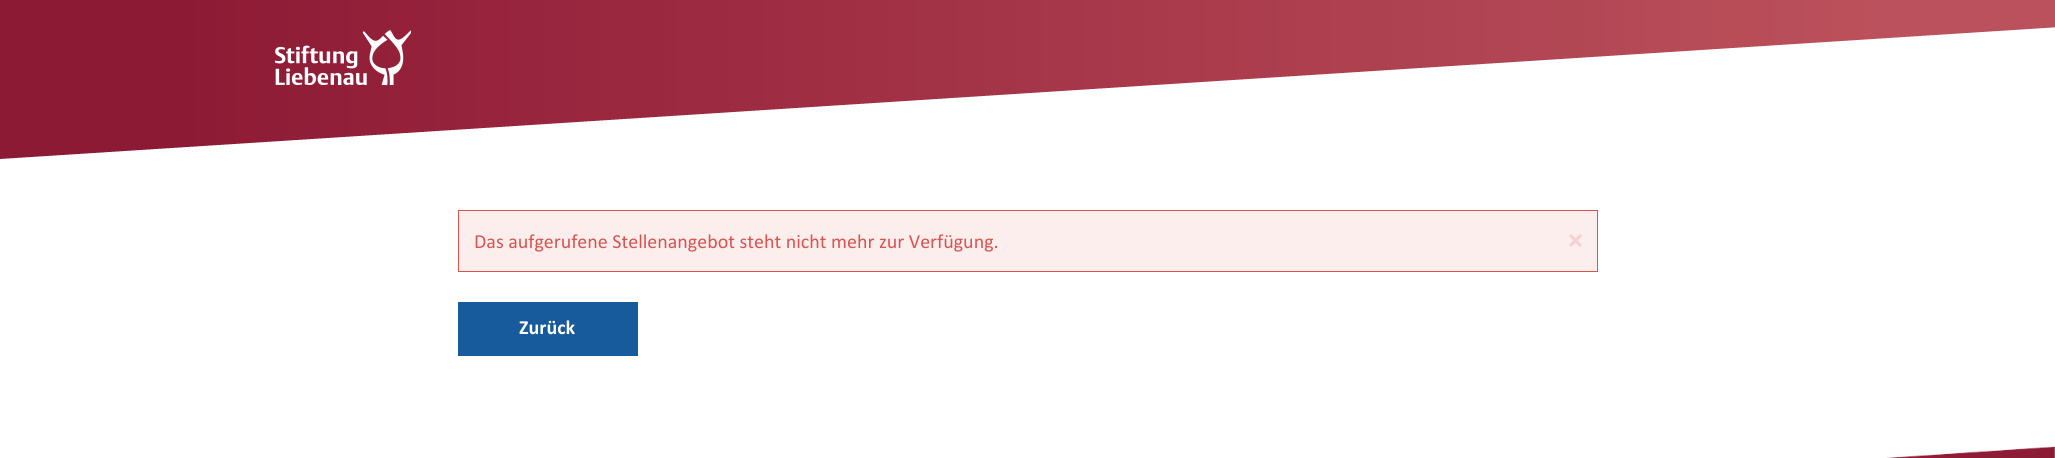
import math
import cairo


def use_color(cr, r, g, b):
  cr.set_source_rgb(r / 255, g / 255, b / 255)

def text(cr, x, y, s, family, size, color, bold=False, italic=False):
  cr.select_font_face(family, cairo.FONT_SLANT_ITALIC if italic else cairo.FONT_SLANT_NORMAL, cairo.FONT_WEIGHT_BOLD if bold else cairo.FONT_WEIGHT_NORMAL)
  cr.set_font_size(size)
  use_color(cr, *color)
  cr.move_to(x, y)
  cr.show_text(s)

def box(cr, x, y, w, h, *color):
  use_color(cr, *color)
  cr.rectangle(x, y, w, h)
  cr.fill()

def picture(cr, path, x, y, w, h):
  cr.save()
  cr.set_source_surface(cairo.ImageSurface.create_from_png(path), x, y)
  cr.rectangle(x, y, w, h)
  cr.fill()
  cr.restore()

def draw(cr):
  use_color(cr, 255, 255, 255)
  cr.paint()
  picture(cr, "img_01.png", 0, 0, 2055, 159)
  picture(cr, "img_02.png", 275, 30, 136, 55)
  use_color(cr, 251, 238, 237)
  cr.rectangle(458.5, 210.5, 1139, 61)
  cr.fill_preserve()
  use_color(cr, 217, 83, 79)
  cr.set_line_width(1)
  cr.stroke()
  box(cr, 458, 302, 180, 54, 24, 91, 157)
  picture(cr, "img_03.png", 1886, 446, 169, 12)
  text(cr, 474, 248, "Das aufgerufene Stellenangebot steht nicht mehr zur Verfügung.", "Calibri", 20, (217, 83, 79))
  text(cr, 1568, 249, "×", "Calibri", 30, (244, 207, 205), bold=True)
  text(cr, 519, 334, "Zurück", "Calibri", 20, (255, 255, 255), bold=True)


surface = cairo.ImageSurface(cairo.FORMAT_RGB24, 2055, 458)
cr = cairo.Context(surface)
options = cairo.FontOptions()
options.set_hint_metrics(cairo.HINT_METRICS_OFF)
options.set_hint_style(cairo.HINT_STYLE_NONE)
cr.set_font_options(options)
cr.set_miter_limit(4)
draw(cr)
surface.write_to_png("out.png")
